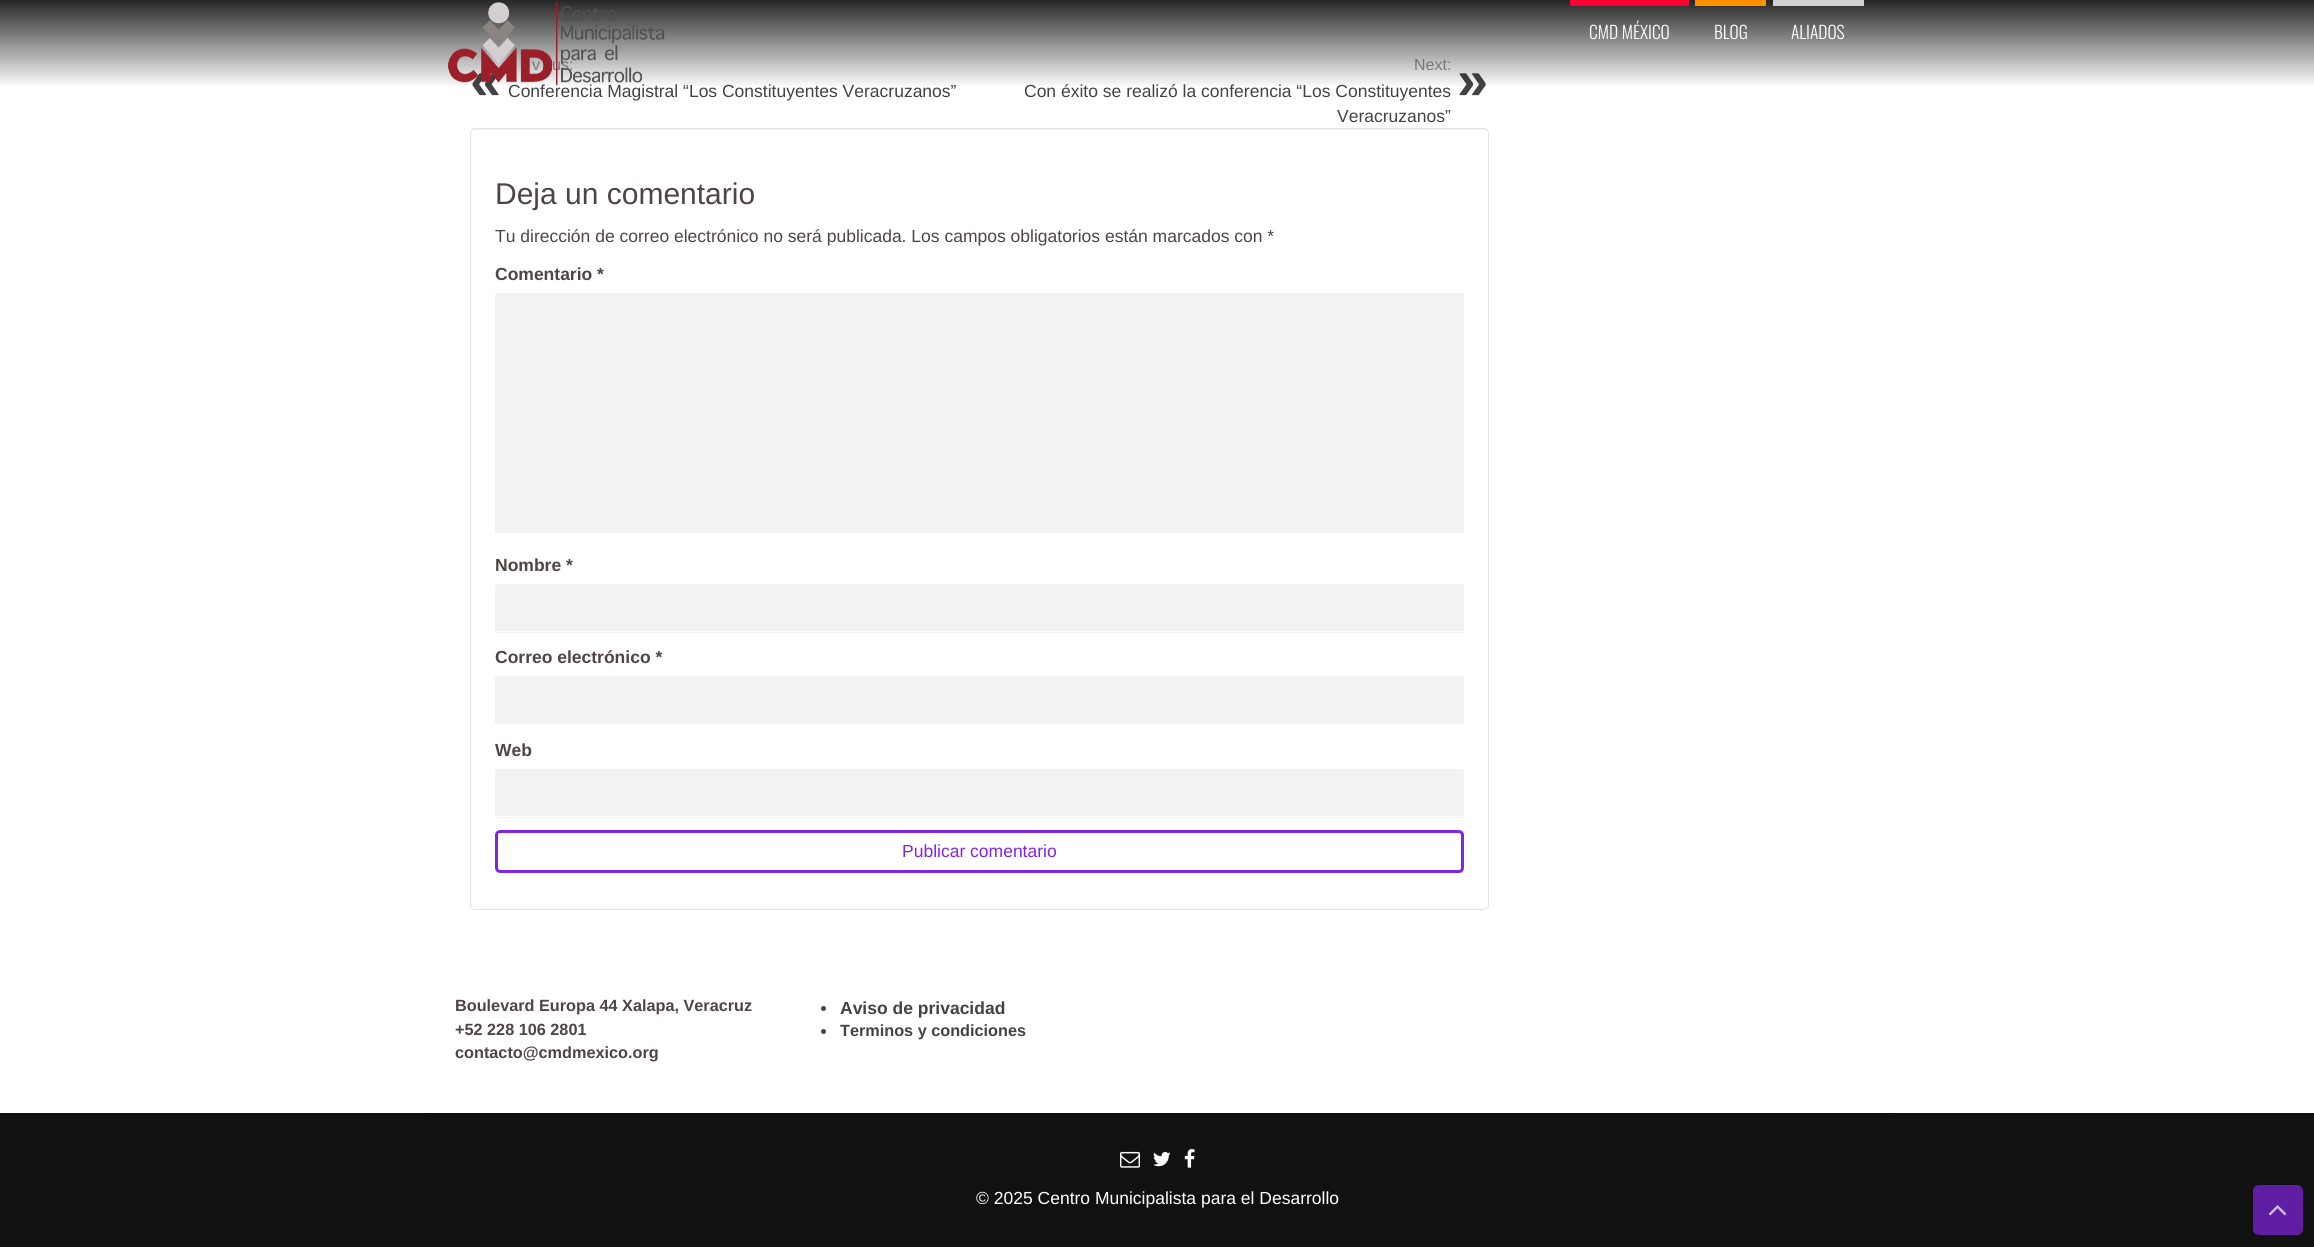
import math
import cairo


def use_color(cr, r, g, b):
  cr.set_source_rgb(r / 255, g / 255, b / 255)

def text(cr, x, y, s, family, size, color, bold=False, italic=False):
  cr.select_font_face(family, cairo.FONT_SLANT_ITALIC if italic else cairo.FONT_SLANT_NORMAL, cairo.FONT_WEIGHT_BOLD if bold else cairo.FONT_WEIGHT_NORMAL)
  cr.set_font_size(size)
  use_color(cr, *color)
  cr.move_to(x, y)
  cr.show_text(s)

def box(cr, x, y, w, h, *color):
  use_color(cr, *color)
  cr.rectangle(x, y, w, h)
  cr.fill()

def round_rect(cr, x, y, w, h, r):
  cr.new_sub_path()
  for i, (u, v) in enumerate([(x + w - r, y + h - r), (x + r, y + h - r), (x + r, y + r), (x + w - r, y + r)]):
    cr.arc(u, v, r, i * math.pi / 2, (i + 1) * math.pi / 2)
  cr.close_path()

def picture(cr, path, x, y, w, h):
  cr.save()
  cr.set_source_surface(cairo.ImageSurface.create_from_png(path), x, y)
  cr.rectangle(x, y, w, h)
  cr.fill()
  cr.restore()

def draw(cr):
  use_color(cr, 255, 255, 255)
  cr.paint()
  use_color(cr, 242, 242, 242)
  cr.new_path()
  cr.move_to(475, 130)
  cr.line_to(1484, 130)
  cr.curve_to(1486, 130, 1488, 132, 1488, 134)
  cr.curve_to(1488, 131, 1487, 129, 1484, 129)
  cr.line_to(475, 129)
  cr.curve_to(472, 129, 471, 131, 471, 134)
  cr.curve_to(471, 132, 473, 130, 475, 130)
  cr.close_path()
  cr.fill()
  round_rect(cr, 470.5, 128.5, 1018, 781, 4.5)
  use_color(cr, 227, 227, 227)
  cr.set_line_width(1)
  cr.stroke()
  use_color(cr, 242, 242, 242)
  round_rect(cr, 495, 293, 969, 241, 2.5)
  cr.fill()
  box(cr, 496, 533, 967, 1, 255, 255, 255)
  use_color(cr, 242, 242, 242)
  round_rect(cr, 495, 584, 969, 49, 2.5)
  cr.fill()
  box(cr, 496, 631, 967, 1, 255, 255, 255)
  use_color(cr, 242, 242, 242)
  round_rect(cr, 495, 676, 969, 49, 2.5)
  cr.fill()
  box(cr, 496, 724, 967, 1, 255, 255, 255)
  use_color(cr, 242, 242, 242)
  round_rect(cr, 495, 769, 969, 49, 2.5)
  cr.fill()
  box(cr, 496, 816, 967, 1, 255, 255, 255)
  round_rect(cr, 496.5, 831.5, 966, 40, 3.5)
  use_color(cr, 130, 36, 227)
  cr.set_line_width(3)
  cr.stroke()
  use_color(cr, 80, 68, 68)
  cr.arc(823.5, 1008.5, 2.5, 0, 2 * math.pi)
  cr.fill()
  cr.arc(823.5, 1031.5, 2.5, 0, 2 * math.pi)
  cr.fill()
  box(cr, 0, 1113, 2314, 134, 17, 17, 17)
  box(cr, 426, 1113, 1463, 1, 13, 13, 13)
  picture(cr, "img_02.png", 1120, 1151, 20, 17)
  picture(cr, "img_03.png", 1153, 1152, 18, 15)
  picture(cr, "img_04.png", 1184, 1149, 11, 19)
  use_color(cr, 96, 30, 164)
  round_rect(cr, 2253, 1185, 50, 50, 6)
  cr.fill()
  picture(cr, "img_05.png", 2268, 1205, 19, 11)
  text(cr, 532, 70, "v", "Liberation Sans", 16, (153, 153, 153))
  text(cr, 552, 70, "us:", "Liberation Sans", 16, (153, 153, 153))
  text(cr, 470, 99, "«", "Liberation Sans", 56, (68, 66, 70), bold=True)
  text(cr, 508, 97, "Conferencia Magistral “Los Constituyentes Veracruzanos”", "Liberation Sans", 17.5, (68, 66, 70))
  text(cr, 1414, 70, "Next:", "Liberation Sans", 16, (153, 153, 153))
  text(cr, 1024, 97, "Con éxito se realizó la conferencia “Los Constituyentes", "Liberation Sans", 17.5, (68, 66, 70))
  text(cr, 1457, 99, "»", "Liberation Sans", 56, (68, 66, 70), bold=True)
  gradient = cairo.LinearGradient(1158, 0, 1158, 88)
  gradient.add_color_stop_rgba(0, 0, 0, 0, 0.85)
  gradient.add_color_stop_rgba(1, 0, 0, 0, 0)
  cr.set_source(gradient)
  cr.rectangle(0, 0, 2314, 86)
  cr.fill()
  text(cr, 1791, 39, "ALIADOS", "Oswald Light", 17.5, (255, 255, 255))
  box(cr, 1773, 0, 91, 6, 210, 210, 210)
  text(cr, 1714, 39, "BLOG", "Oswald Light", 17.5, (255, 255, 255))
  box(cr, 1695, 0, 71, 6, 255, 145, 0)
  text(cr, 1589, 39, "CMD MÉXICO", "Oswald Light", 17.5, (255, 255, 255))
  box(cr, 1570, 0, 119, 6, 249, 0, 49)
  picture(cr, "img_01.png", 447, 2, 218, 84)
  text(cr, 1337, 122, "Veracruzanos”", "Liberation Sans", 17.5, (68, 66, 70))
  text(cr, 495, 204, "Deja un comentario", "Liberation Sans", 30, (80, 68, 68))
  text(cr, 495, 242, "Tu dirección de correo electrónico no será publicada. Los campos obligatorios están marcados con *", "Liberation Sans", 17.5, (80, 68, 68))
  text(cr, 495, 280, "Comentario *", "Liberation Sans", 17.5, (80, 68, 68), bold=True)
  text(cr, 495, 571, "Nombre *", "Liberation Sans", 17.5, (80, 68, 68), bold=True)
  text(cr, 495, 663, "Correo electrónico *", "Liberation Sans", 17.5, (80, 68, 68), bold=True)
  text(cr, 495, 756, "Web", "Liberation Sans", 17.5, (80, 68, 68), bold=True)
  text(cr, 902, 857, "Publicar comentario", "Liberation Sans", 17.5, (130, 36, 227))
  text(cr, 455, 1011, "Boulevard Europa 44 Xalapa, Veracruz", "Liberation Sans", 16.25, (80, 68, 68), bold=True)
  text(cr, 455, 1035, "+52 228 106 2801", "Liberation Sans", 16.25, (80, 68, 68), bold=True)
  text(cr, 455, 1058, "contacto@cmdmexico.org", "Liberation Sans", 16.25, (80, 68, 68), bold=True)
  text(cr, 840, 1014, "Aviso de privacidad", "Liberation Sans", 17.5, (68, 66, 70), bold=True)
  text(cr, 840, 1036, "Terminos y condiciones", "Liberation Sans", 16.25, (68, 66, 70), bold=True)
  text(cr, 976, 1204, "© 2025 Centro Municipalista para el Desarrollo", "Liberation Sans", 17.5, (255, 255, 255))


surface = cairo.ImageSurface(cairo.FORMAT_RGB24, 2314, 1247)
cr = cairo.Context(surface)
options = cairo.FontOptions()
options.set_hint_metrics(cairo.HINT_METRICS_OFF)
options.set_hint_style(cairo.HINT_STYLE_NONE)
cr.set_font_options(options)
cr.set_miter_limit(4)
draw(cr)
surface.write_to_png("out.png")
